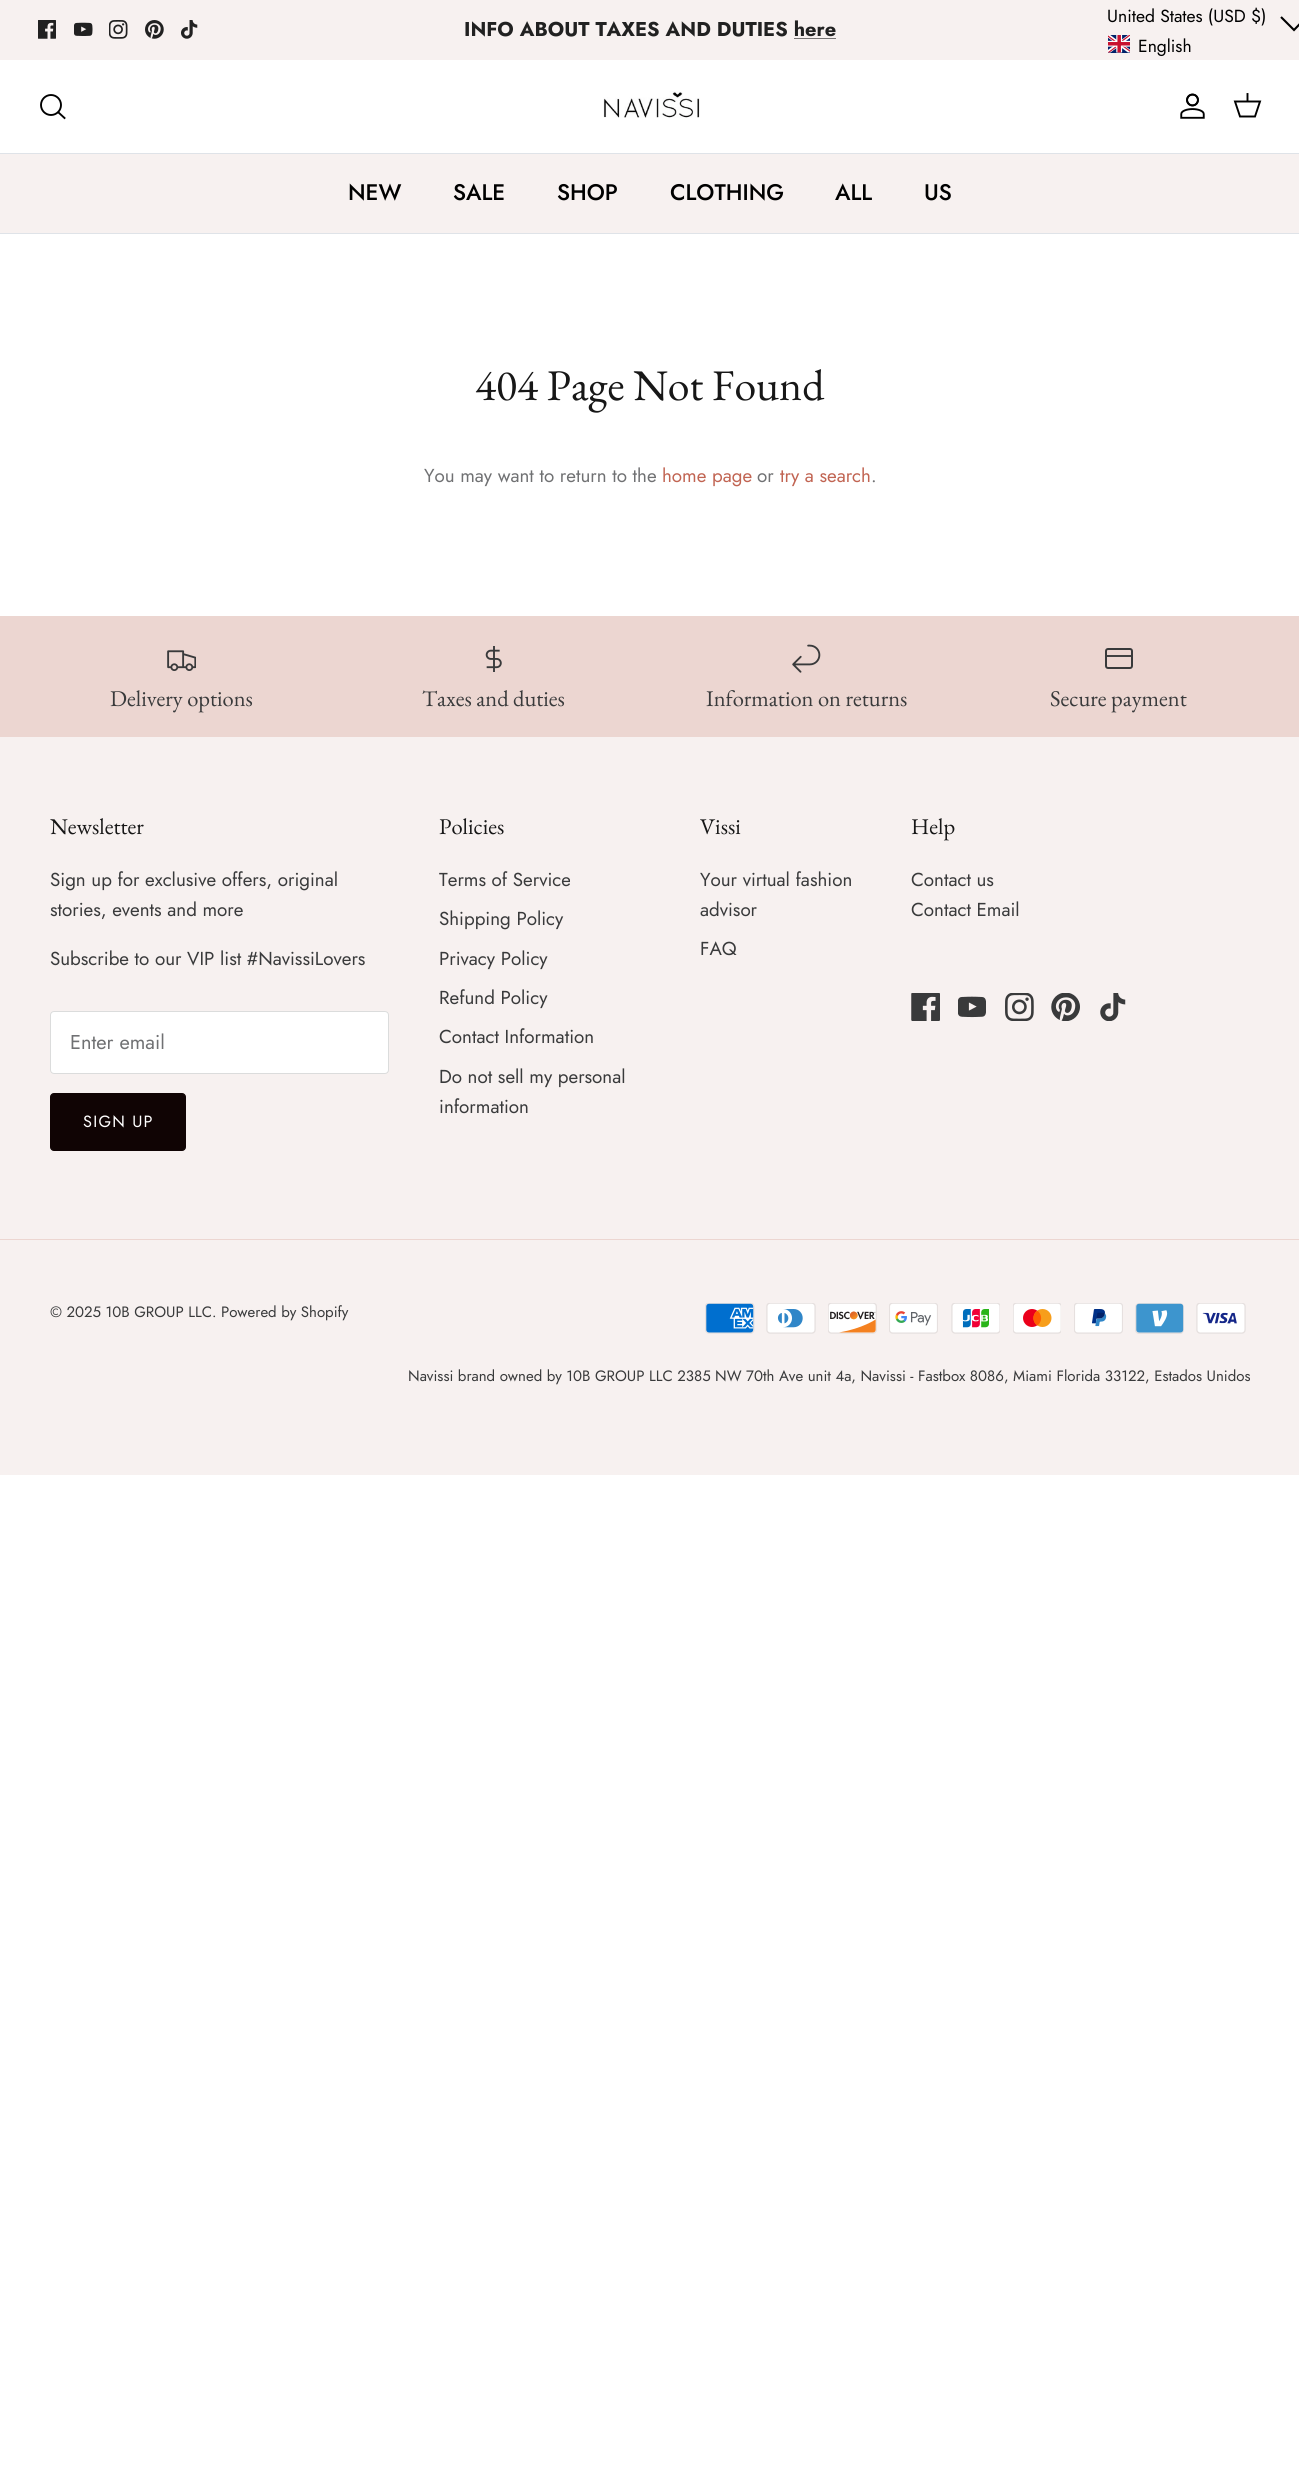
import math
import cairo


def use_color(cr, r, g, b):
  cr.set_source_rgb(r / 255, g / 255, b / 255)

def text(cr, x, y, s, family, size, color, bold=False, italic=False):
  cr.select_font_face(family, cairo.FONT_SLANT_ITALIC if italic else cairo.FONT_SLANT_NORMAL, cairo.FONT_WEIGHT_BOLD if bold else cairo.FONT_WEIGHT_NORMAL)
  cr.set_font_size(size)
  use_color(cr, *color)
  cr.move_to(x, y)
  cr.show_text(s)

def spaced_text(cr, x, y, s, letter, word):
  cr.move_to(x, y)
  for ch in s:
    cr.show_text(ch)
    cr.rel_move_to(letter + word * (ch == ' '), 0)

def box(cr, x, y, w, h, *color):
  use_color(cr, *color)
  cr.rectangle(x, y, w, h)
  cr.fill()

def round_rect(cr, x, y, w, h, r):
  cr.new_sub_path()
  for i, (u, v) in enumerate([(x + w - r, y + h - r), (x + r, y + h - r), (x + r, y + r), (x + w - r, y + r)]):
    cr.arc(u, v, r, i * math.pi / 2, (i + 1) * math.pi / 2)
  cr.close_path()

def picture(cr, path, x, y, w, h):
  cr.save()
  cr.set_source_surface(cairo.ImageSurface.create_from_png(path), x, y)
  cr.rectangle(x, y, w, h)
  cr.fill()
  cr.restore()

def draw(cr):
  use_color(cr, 255, 255, 255)
  cr.paint()
  box(cr, 0, 0, 1299, 60, 247, 241, 240)
  picture(cr, "img_01.png", 38, 20, 18, 19)
  picture(cr, "img_02.png", 74, 22, 19, 14)
  picture(cr, "img_03.png", 109, 20, 19, 19)
  picture(cr, "img_04.png", 145, 20, 19, 19)
  picture(cr, "img_05.png", 181, 20, 17, 19)
  box(cr, 794, 38, 42, 1, 119, 116, 116)
  cr.new_path()
  cr.move_to(1281, 17)
  cr.line_to(1294, 30)
  cr.line_to(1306.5, 17)
  use_color(cr, 0, 0, 0)
  cr.set_line_width(2.1)
  cr.stroke()
  picture(cr, "img_06.png", 1108, 35, 22, 18)
  box(cr, 0, 153, 1299, 1, 223, 227, 232)
  cr.arc(51, 105, 10, 0, 2 * math.pi)
  use_color(cr, 0, 0, 0)
  cr.set_line_width(1.9)
  cr.stroke()
  cr.new_path()
  cr.move_to(58.5, 112.5)
  cr.line_to(64.5, 118)
  cr.set_line_cap(cairo.LINE_CAP_SQUARE)
  cr.stroke()
  picture(cr, "img_07.png", 603, 91, 97, 27)
  picture(cr, "img_08.png", 1180, 93, 25, 26)
  cr.new_path()
  cr.move_to(1235, 101.5)
  cr.line_to(1260, 101.5)
  cr.line_to(1255, 116.5)
  cr.line_to(1240, 116.5)
  cr.close_path()
  cr.set_line_cap(cairo.LINE_CAP_BUTT)
  cr.stroke()
  cr.new_path()
  cr.move_to(1247.5, 101)
  cr.line_to(1247.5, 94)
  cr.set_line_cap(cairo.LINE_CAP_SQUARE)
  cr.stroke()
  box(cr, 0, 233, 1299, 1, 223, 227, 232)
  box(cr, 0, 154, 1299, 79, 247, 241, 240)
  box(cr, 0, 737, 1299, 738, 247, 241, 240)
  box(cr, 0, 616, 1299, 121, 236, 214, 209)
  picture(cr, "img_09.png", 167, 650, 29, 21)
  picture(cr, "img_10.png", 485, 646, 17, 26)
  picture(cr, "img_11.png", 792, 644, 29, 29)
  round_rect(cr, 1106, 649, 26, 19, 2)
  use_color(cr, 57, 58, 59)
  cr.set_line_width(2)
  cr.set_line_cap(cairo.LINE_CAP_BUTT)
  cr.stroke()
  cr.set_source_rgba(0.224, 0.227, 0.231, 0.95)
  cr.rectangle(1106, 655, 26, 2)
  cr.fill()
  use_color(cr, 255, 255, 255)
  round_rect(cr, 50.5, 1011.5, 338, 62, 3.5)
  cr.fill_preserve()
  use_color(cr, 219, 220, 220)
  cr.set_line_width(1)
  cr.stroke()
  use_color(cr, 16, 4, 4)
  round_rect(cr, 50.5, 1093.5, 135, 57, 3.5)
  cr.fill_preserve()
  cr.stroke()
  picture(cr, "img_12.png", 911, 993, 29, 28)
  picture(cr, "img_13.png", 958, 996, 28, 22)
  picture(cr, "img_14.png", 1005, 993, 29, 28)
  picture(cr, "img_15.png", 1051, 993, 29, 28)
  picture(cr, "img_16.png", 1100, 993, 26, 28)
  box(cr, 0, 1239, 1299, 1, 236, 214, 209)
  picture(cr, "img_17.png", 705, 1303, 50, 31)
  picture(cr, "img_18.png", 766, 1303, 50, 31)
  picture(cr, "img_19.png", 828, 1303, 49, 31)
  picture(cr, "img_20.png", 889, 1303, 49, 31)
  picture(cr, "img_21.png", 951, 1303, 49, 31)
  picture(cr, "img_22.png", 1013, 1303, 48, 31)
  picture(cr, "img_23.png", 1074, 1303, 49, 31)
  picture(cr, "img_24.png", 1135, 1303, 49, 31)
  picture(cr, "img_25.png", 1196, 1303, 50, 31)
  text(cr, 464, 36, "INFO ABOUT TAXES AND DUTIES here", "Jost", 20, (33, 33, 33), bold=True)
  text(cr, 1107, 22, "United States (USD $)", "Jost", 17.5, (0, 0, 0))
  text(cr, 1138, 52, "English", "Jost", 17.5, (0, 0, 0))
  text(cr, 348, 200, "NEW", "Jost Medium", 22.5, (0, 0, 0))
  text(cr, 453, 200, "SALE", "Jost Medium", 22.5, (0, 0, 0))
  text(cr, 557, 200, "SHOP", "Jost Medium", 22.5, (0, 0, 0))
  text(cr, 670, 200, "CLOTHING", "Jost Medium", 22.5, (0, 0, 0))
  text(cr, 835, 200, "ALL", "Jost Medium", 22.5, (0, 0, 0))
  text(cr, 924, 200, "US", "Jost Medium", 22.5, (0, 0, 0))
  text(cr, 475, 400, "404 Page Not Found", "EB Garamond", 43.75, (23, 23, 23))
  text(cr, 424, 482, "You may want to return to the", "Jost", 18.75, (112, 113, 115))
  text(cr, 662, 482, "home page", "Jost", 18.75, (193, 100, 82))
  text(cr, 757, 482, "or", "Jost", 18.75, (112, 113, 115))
  text(cr, 780, 482, "try a search", "Jost", 18.75, (193, 100, 82))
  text(cr, 871, 482, ".", "Jost", 18.75, (112, 113, 115))
  text(cr, 110, 706, "Delivery options", "EB Garamond", 22.5, (57, 58, 59))
  text(cr, 422, 706, "Taxes and duties", "EB Garamond", 22.5, (57, 58, 59))
  text(cr, 706, 706, "Information on returns", "EB Garamond", 22.5, (57, 58, 59))
  text(cr, 1050, 706, "Secure payment", "EB Garamond", 22.5, (57, 58, 59))
  text(cr, 50, 834, "Newsletter", "EB Garamond", 22.5, (23, 23, 23))
  text(cr, 50, 886, "Sign up for exclusive offers, original", "Jost", 18.75, (57, 58, 59))
  text(cr, 50, 916, "stories, events and more", "Jost", 18.75, (57, 58, 59))
  text(cr, 50, 965, "Subscribe to our VIP list #NavissiLovers", "Jost", 18.75, (57, 58, 59))
  text(cr, 70, 1049, "Enter email", "Jost", 20, (112, 113, 115))
  cr.set_font_size(16.25)
  use_color(cr, 255, 255, 255)
  spaced_text(cr, 83, 1127, "SIGN UP", 1.25, 0)
  text(cr, 439, 834, "Policies", "EB Garamond", 22.5, (23, 23, 23))
  text(cr, 439, 886, "Terms of Service", "Jost", 18.75, (57, 58, 59))
  text(cr, 439, 925, "Shipping Policy", "Jost", 18.75, (57, 58, 59))
  text(cr, 439, 965, "Privacy Policy", "Jost", 18.75, (57, 58, 59))
  text(cr, 439, 1004, "Refund Policy", "Jost", 18.75, (57, 58, 59))
  text(cr, 439, 1043, "Contact Information", "Jost", 18.75, (57, 58, 59))
  text(cr, 439, 1083, "Do not sell my personal", "Jost", 18.75, (57, 58, 59))
  text(cr, 439, 1113, "information", "Jost", 18.75, (57, 58, 59))
  text(cr, 700, 834, "Vissi", "EB Garamond", 22.5, (23, 23, 23))
  text(cr, 700, 886, "Your virtual fashion", "Jost", 18.75, (57, 58, 59))
  text(cr, 700, 916, "advisor", "Jost", 18.75, (57, 58, 59))
  text(cr, 700, 955, "FAQ", "Jost", 18.75, (57, 58, 59))
  text(cr, 911, 834, "Help", "EB Garamond", 22.5, (23, 23, 23))
  text(cr, 911, 886, "Contact us", "Jost", 18.75, (57, 58, 59))
  text(cr, 911, 916, "Contact Email", "Jost", 18.75, (57, 58, 59))
  text(cr, 50, 1317, "© 2025 10B GROUP LLC. Powered by Shopify", "Jost", 15, (57, 58, 59))
  text(cr, 408, 1381, "Navissi brand owned by 10B GROUP LLC 2385 NW 70th Ave unit 4a, Navissi - Fastbox 8086, Miami Florida 33122, Estados Unidos", "Jost", 15, (57, 58, 59))


surface = cairo.ImageSurface(cairo.FORMAT_RGB24, 1299, 2489)
cr = cairo.Context(surface)
options = cairo.FontOptions()
options.set_hint_metrics(cairo.HINT_METRICS_OFF)
options.set_hint_style(cairo.HINT_STYLE_NONE)
cr.set_font_options(options)
cr.set_miter_limit(4)
draw(cr)
surface.write_to_png("out.png")
